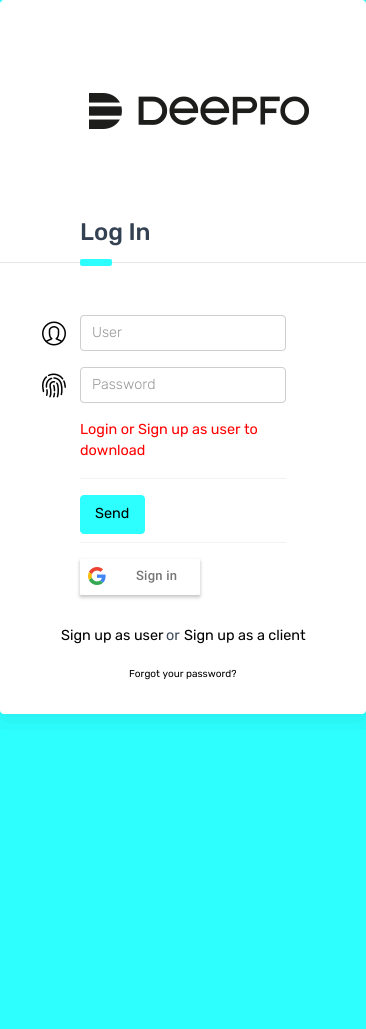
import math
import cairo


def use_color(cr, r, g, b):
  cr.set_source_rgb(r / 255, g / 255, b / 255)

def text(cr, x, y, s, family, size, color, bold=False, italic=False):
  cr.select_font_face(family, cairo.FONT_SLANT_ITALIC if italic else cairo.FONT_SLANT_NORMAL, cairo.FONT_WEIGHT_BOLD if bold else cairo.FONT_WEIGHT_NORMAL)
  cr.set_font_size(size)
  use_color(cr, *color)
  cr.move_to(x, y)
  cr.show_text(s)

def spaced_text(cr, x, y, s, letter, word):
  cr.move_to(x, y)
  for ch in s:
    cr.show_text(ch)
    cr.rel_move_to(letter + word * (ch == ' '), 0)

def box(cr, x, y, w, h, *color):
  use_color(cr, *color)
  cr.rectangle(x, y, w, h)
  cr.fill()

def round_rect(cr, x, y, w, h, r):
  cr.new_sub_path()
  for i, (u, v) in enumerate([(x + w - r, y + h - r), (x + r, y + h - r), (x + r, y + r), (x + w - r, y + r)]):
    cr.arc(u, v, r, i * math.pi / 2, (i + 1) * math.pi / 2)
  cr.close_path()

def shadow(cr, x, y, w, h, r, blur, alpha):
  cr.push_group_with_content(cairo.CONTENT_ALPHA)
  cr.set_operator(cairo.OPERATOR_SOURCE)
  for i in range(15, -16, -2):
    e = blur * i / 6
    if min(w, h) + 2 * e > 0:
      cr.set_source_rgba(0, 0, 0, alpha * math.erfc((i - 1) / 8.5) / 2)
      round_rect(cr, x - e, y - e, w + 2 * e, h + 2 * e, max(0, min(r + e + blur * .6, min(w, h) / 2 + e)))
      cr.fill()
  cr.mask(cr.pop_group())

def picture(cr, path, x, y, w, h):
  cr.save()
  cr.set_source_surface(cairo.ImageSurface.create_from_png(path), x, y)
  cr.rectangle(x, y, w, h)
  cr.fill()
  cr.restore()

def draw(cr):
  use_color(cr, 45, 255, 255)
  cr.paint()
  cr.save()
  cr.rectangle(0, 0, 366, 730)
  cr.clip()
  use_color(cr, 0, 0, 0)
  shadow(cr, 0, 0, 366, 714, 4, 20, 0.1)
  cr.restore()
  use_color(cr, 255, 255, 255)
  round_rect(cr, 0, 0, 366, 714, 4)
  cr.fill()
  picture(cr, "img_01.png", 89, 93, 220, 36)
  box(cr, 0, 262, 366, 1, 230, 230, 230)
  use_color(cr, 45, 255, 255)
  round_rect(cr, 80, 259, 32, 7, 2)
  cr.fill()
  picture(cr, "img_02.png", 42, 321, 24, 25)
  round_rect(cr, 80.5, 315.5, 205, 35, 3.5)
  use_color(cr, 206, 206, 206)
  cr.set_line_width(1)
  cr.stroke()
  picture(cr, "img_03.png", 42, 373, 24, 25)
  round_rect(cr, 80.5, 367.5, 205, 35, 3.5)
  cr.stroke()
  box(cr, 80, 478, 206, 1, 242, 242, 242)
  use_color(cr, 45, 255, 255)
  round_rect(cr, 80.5, 495.5, 64, 38, 3.5)
  cr.fill_preserve()
  cr.stroke()
  box(cr, 80, 542, 206, 1, 242, 242, 242)
  use_color(cr, 0, 0, 0)
  shadow(cr, 80, 561, 120, 36, 1, 2, 0.25)
  use_color(cr, 255, 255, 255)
  round_rect(cr, 80, 559, 120, 36, 1)
  cr.fill()
  picture(cr, "img_04.png", 88, 567, 18, 18)
  text(cr, 80, 240, "Log In", "Rubik Medium", 24, (51, 65, 82))
  text(cr, 92, 337, "User", "Rubik Light", 14.4, (153, 153, 153))
  text(cr, 92, 389, "Password", "Rubik Light", 14.4, (153, 153, 153))
  text(cr, 80, 434, "Login or Sign up as user to", "Rubik", 14.4, (255, 0, 0))
  text(cr, 80, 455, "download", "Rubik", 14.4, (255, 0, 0))
  text(cr, 95, 518, "Send", "Rubik", 14.4, (0, 0, 0))
  cr.select_font_face("Roboto Medium")
  cr.set_font_size(13)
  use_color(cr, 117, 117, 117)
  spaced_text(cr, 136, 580, "Sign in", 0.25, 0)
  text(cr, 61, 640, "Sign up as user", "Rubik", 14.4, (0, 0, 0))
  text(cr, 166, 640, "or", "Rubik", 14.4, (62, 75, 91))
  text(cr, 184, 640, "Sign up as a client", "Rubik", 14.4, (0, 0, 0))
  text(cr, 129, 677, "Forgot your password?", "Rubik", 10, (0, 0, 0))


surface = cairo.ImageSurface(cairo.FORMAT_RGB24, 366, 1029)
cr = cairo.Context(surface)
options = cairo.FontOptions()
options.set_hint_metrics(cairo.HINT_METRICS_OFF)
options.set_hint_style(cairo.HINT_STYLE_NONE)
cr.set_font_options(options)
cr.set_miter_limit(4)
draw(cr)
surface.write_to_png("out.png")
